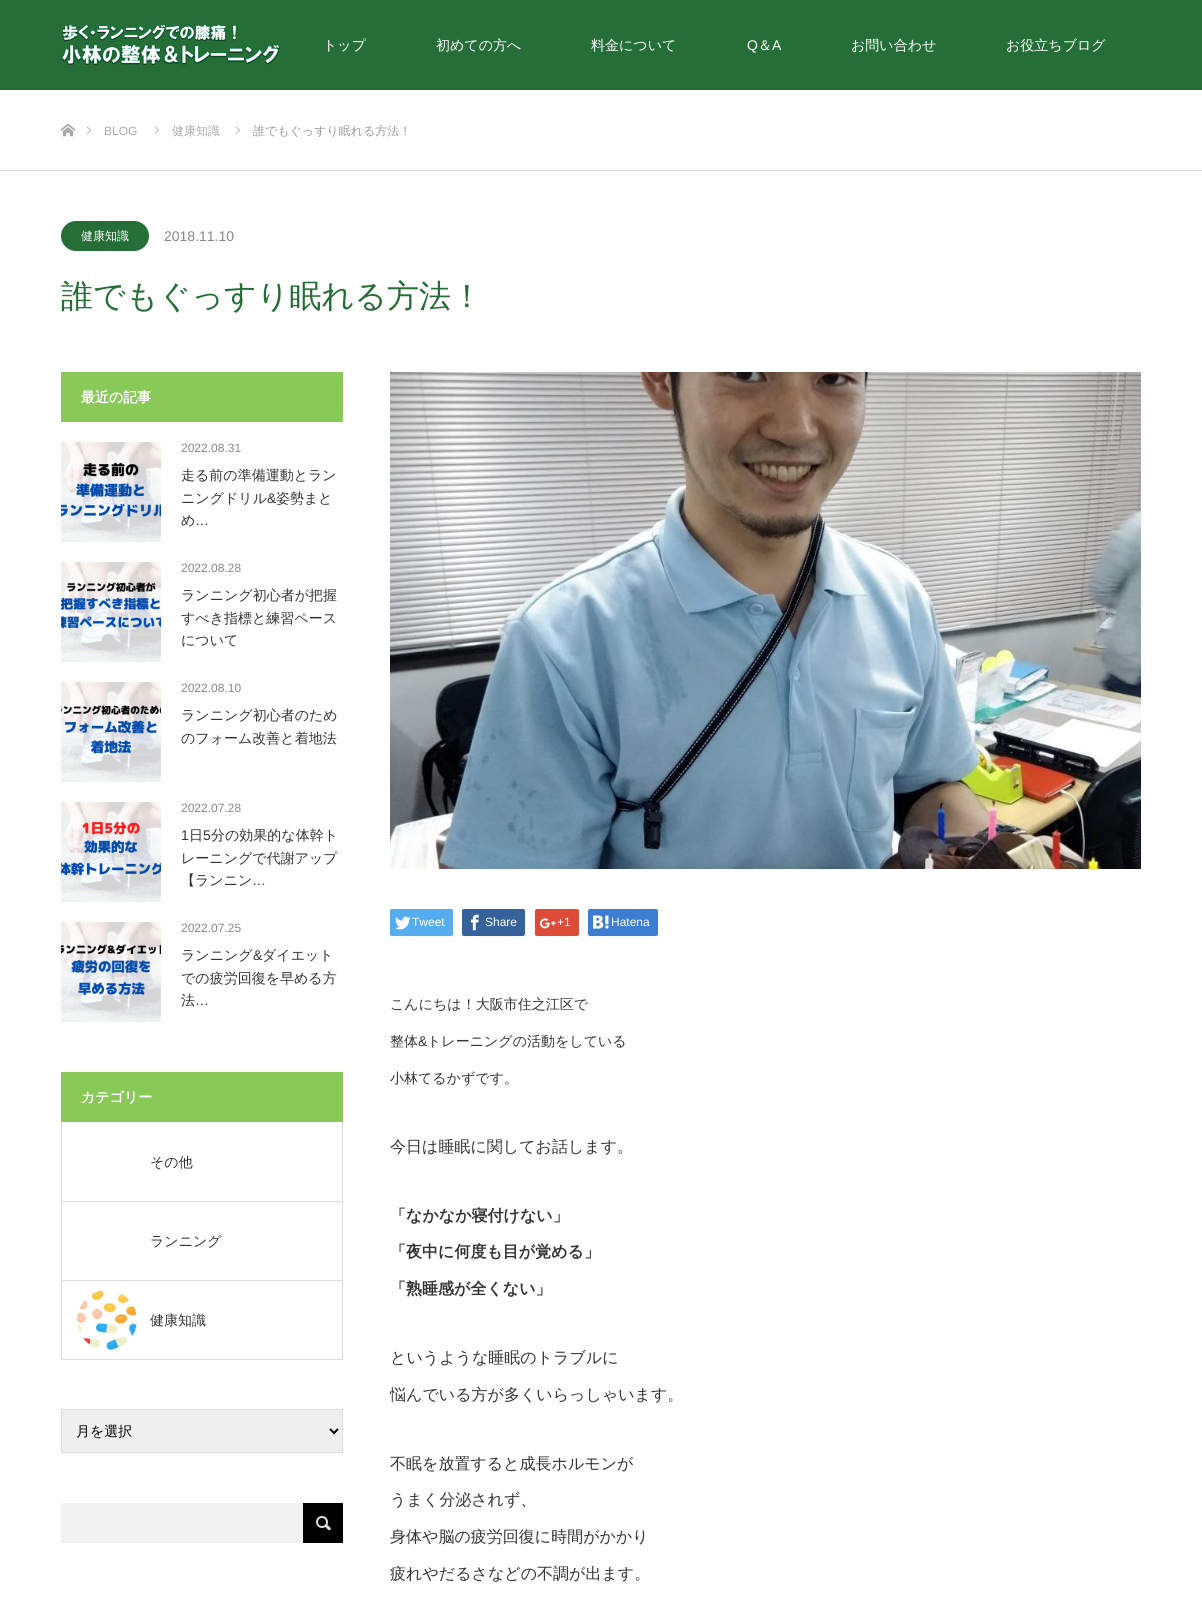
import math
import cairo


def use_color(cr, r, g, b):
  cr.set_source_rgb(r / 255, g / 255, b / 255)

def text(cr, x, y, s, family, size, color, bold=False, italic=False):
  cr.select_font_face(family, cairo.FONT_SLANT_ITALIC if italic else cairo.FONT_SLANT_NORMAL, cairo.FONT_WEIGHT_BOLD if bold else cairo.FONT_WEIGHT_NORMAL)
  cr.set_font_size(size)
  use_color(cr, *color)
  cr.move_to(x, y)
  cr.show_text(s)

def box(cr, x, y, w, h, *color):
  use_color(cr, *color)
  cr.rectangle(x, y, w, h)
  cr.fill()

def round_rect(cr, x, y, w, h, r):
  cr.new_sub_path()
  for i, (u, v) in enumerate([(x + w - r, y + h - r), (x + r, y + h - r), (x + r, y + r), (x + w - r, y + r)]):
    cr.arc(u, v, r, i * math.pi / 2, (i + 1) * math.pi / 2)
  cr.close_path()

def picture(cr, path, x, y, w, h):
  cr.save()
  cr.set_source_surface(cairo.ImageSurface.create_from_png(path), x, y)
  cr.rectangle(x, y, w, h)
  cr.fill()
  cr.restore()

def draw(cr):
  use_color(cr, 255, 255, 255)
  cr.paint()
  box(cr, 0, 0, 1202, 90, 38, 110, 55)
  picture(cr, "img_01.png", 61, 24, 220, 42)
  box(cr, 0, 170, 1202, 1, 221, 221, 221)
  picture(cr, "img_02.png", 61, 123, 14, 14)
  picture(cr, "img_03.png", 86, 126, 5, 8)
  picture(cr, "img_03.png", 154, 126, 5, 8)
  picture(cr, "img_03.png", 235, 126, 5, 8)
  use_color(cr, 38, 110, 55)
  round_rect(cr, 61, 221, 88, 30, 15)
  cr.fill()
  box(cr, 61, 372, 282, 50, 137, 201, 87)
  picture(cr, "img_04.png", 61, 442, 100, 100)
  picture(cr, "img_05.png", 61, 562, 100, 100)
  picture(cr, "img_06.png", 61, 682, 100, 100)
  picture(cr, "img_07.png", 61, 802, 100, 100)
  picture(cr, "img_08.png", 61, 922, 100, 100)
  box(cr, 61, 1072, 282, 50, 137, 201, 87)
  box(cr, 342, 1122, 1, 80, 221, 221, 221)
  box(cr, 61, 1201, 282, 1, 221, 221, 221)
  box(cr, 61, 1122, 1, 80, 221, 221, 221)
  box(cr, 342, 1201, 1, 80, 221, 221, 221)
  box(cr, 61, 1280, 282, 1, 221, 221, 221)
  box(cr, 61, 1201, 1, 80, 221, 221, 221)
  box(cr, 342, 1280, 1, 80, 221, 221, 221)
  box(cr, 61, 1359, 282, 1, 221, 221, 221)
  box(cr, 61, 1280, 1, 80, 221, 221, 221)
  picture(cr, "img_09.png", 77, 1290, 60, 60)
  use_color(cr, 239, 239, 239)
  cr.rectangle(61.5, 1409.5, 281, 43)
  cr.fill_preserve()
  use_color(cr, 221, 221, 221)
  cr.set_line_width(1)
  cr.stroke()
  cr.new_path()
  cr.move_to(330, 1429)
  cr.line_to(334, 1433)
  cr.line_to(338, 1429)
  use_color(cr, 0, 0, 0)
  cr.set_line_width(2)
  cr.stroke()
  box(cr, 61, 1503, 242, 40, 242, 242, 242)
  box(cr, 303, 1503, 40, 40, 0, 0, 0)
  picture(cr, "img_10.png", 316, 1516, 15, 15)
  picture(cr, "img_11.png", 390, 372, 751, 497)
  use_color(cr, 247, 247, 247)
  cr.new_path()
  cr.move_to(390, 934)
  cr.curve_to(390, 940, 398, 937, 402, 937)
  cr.line_to(441, 937)
  cr.curve_to(445, 937, 453, 940, 453, 934)
  cr.line_to(452, 936)
  cr.line_to(402, 936)
  cr.curve_to(398, 936, 390, 938, 390, 934)
  cr.close_path()
  cr.fill()
  use_color(cr, 85, 172, 238)
  round_rect(cr, 390, 909, 63, 27, 2)
  cr.fill()
  picture(cr, "img_12.png", 395, 916, 16, 14)
  use_color(cr, 247, 247, 247)
  cr.new_path()
  cr.move_to(462, 934)
  cr.curve_to(462, 940, 470, 937, 474, 937)
  cr.line_to(513, 937)
  cr.curve_to(517, 937, 525, 940, 525, 934)
  cr.curve_to(525, 938, 517, 936, 513, 936)
  cr.line_to(463, 936)
  cr.close_path()
  cr.fill()
  use_color(cr, 53, 98, 154)
  round_rect(cr, 462, 909, 63, 27, 2)
  cr.fill()
  picture(cr, "img_13.png", 470, 914, 9, 17)
  use_color(cr, 247, 247, 247)
  cr.new_path()
  cr.move_to(535, 934)
  cr.curve_to(535, 939, 540, 937, 544, 937)
  cr.line_to(570, 937)
  cr.curve_to(574, 937, 579, 939, 579, 934)
  cr.curve_to(579, 935, 578, 936, 577, 936)
  cr.line_to(537, 936)
  cr.curve_to(536, 936, 535, 935, 535, 934)
  cr.close_path()
  cr.fill()
  use_color(cr, 221, 75, 57)
  round_rect(cr, 535, 909, 44, 27, 2)
  cr.fill()
  picture(cr, "img_14.png", 540, 918, 16, 11)
  use_color(cr, 247, 247, 247)
  cr.new_path()
  cr.move_to(588, 934)
  cr.curve_to(588, 940, 597, 937, 601, 937)
  cr.line_to(645, 937)
  cr.curve_to(649, 937, 658, 940, 658, 934)
  cr.curve_to(658, 935, 657, 936, 656, 936)
  cr.line_to(589, 936)
  cr.close_path()
  cr.fill()
  use_color(cr, 60, 125, 209)
  round_rect(cr, 588, 909, 70, 27, 2)
  cr.fill()
  picture(cr, "img_15.png", 593, 915, 16, 14)
  text(cr, 323, 50, "トップ", "WenQuanYi Zen Hei Medium", 14, (255, 255, 255))
  text(cr, 436, 50, "初めての方へ", "WenQuanYi Zen Hei Medium", 14, (255, 255, 255))
  text(cr, 591, 50, "料金について", "WenQuanYi Zen Hei Medium", 14, (255, 255, 255))
  text(cr, 747, 50, "Q", "Liberation Sans", 14, (255, 255, 255))
  text(cr, 758, 50, "＆", "WenQuanYi Zen Hei Medium", 14, (255, 255, 255))
  text(cr, 772, 50, "A", "Liberation Sans", 14, (255, 255, 255))
  text(cr, 851, 50, "お問い合わせ", "WenQuanYi Zen Hei Medium", 14, (255, 255, 255))
  text(cr, 1006, 50, "お役立ちブログ", "WenQuanYi Zen Hei Medium", 14, (255, 255, 255))
  text(cr, 104, 135, "BLOG", "Liberation Sans", 12, (170, 170, 170))
  text(cr, 172, 135, "健康知識", "WenQuanYi Zen Hei Medium", 12, (170, 170, 170))
  text(cr, 253, 135, "誰でもぐっすり眠れる方法！", "WenQuanYi Zen Hei Medium", 12, (153, 153, 153))
  text(cr, 81, 240, "健康知識", "WenQuanYi Zen Hei Medium", 12, (255, 255, 255))
  text(cr, 164, 241, "2018.11.10", "Liberation Sans", 14, (136, 136, 136))
  text(cr, 61, 307, "誰でもぐっすり眠れる方法！", "WenQuanYi Zen Hei Medium", 32, (38, 110, 55))
  text(cr, 81, 402, "最近の記事", "WenQuanYi Zen Hei", 14, (255, 255, 255), bold=True)
  text(cr, 181, 452, "2022.08.31", "Liberation Sans", 12, (136, 136, 136))
  text(cr, 181, 480, "走る前の準備運動とラン", "WenQuanYi Zen Hei Medium", 14, (51, 51, 51))
  text(cr, 181, 503, "ニングドリル", "WenQuanYi Zen Hei Medium", 14, (51, 51, 51))
  text(cr, 267, 503, "&", "Liberation Sans", 14, (51, 51, 51))
  text(cr, 276, 503, "姿勢まと", "WenQuanYi Zen Hei Medium", 14, (51, 51, 51))
  text(cr, 181, 525, "め", "WenQuanYi Zen Hei Medium", 14, (51, 51, 51))
  text(cr, 195, 525, "…", "Liberation Sans", 14, (51, 51, 51))
  text(cr, 181, 572, "2022.08.28", "Liberation Sans", 12, (136, 136, 136))
  text(cr, 181, 600, "ランニング初心者が把握", "WenQuanYi Zen Hei Medium", 14, (51, 51, 51))
  text(cr, 181, 623, "すべき指標と練習ペース", "WenQuanYi Zen Hei Medium", 14, (51, 51, 51))
  text(cr, 181, 645, "について", "WenQuanYi Zen Hei Medium", 14, (51, 51, 51))
  text(cr, 181, 692, "2022.08.10", "Liberation Sans", 12, (136, 136, 136))
  text(cr, 181, 720, "ランニング初心者のため", "WenQuanYi Zen Hei Medium", 14, (51, 51, 51))
  text(cr, 181, 743, "のフォーム改善と着地法", "WenQuanYi Zen Hei Medium", 14, (51, 51, 51))
  text(cr, 181, 812, "2022.07.28", "Liberation Sans", 12, (136, 136, 136))
  text(cr, 181, 840, "1", "Liberation Sans", 14, (51, 51, 51))
  text(cr, 189, 840, "日", "WenQuanYi Zen Hei Medium", 14, (51, 51, 51))
  text(cr, 203, 840, "5", "Liberation Sans", 14, (51, 51, 51))
  text(cr, 211, 840, "分の効果的な体幹ト", "WenQuanYi Zen Hei Medium", 14, (51, 51, 51))
  text(cr, 181, 863, "レーニングで代謝アップ", "WenQuanYi Zen Hei Medium", 14, (51, 51, 51))
  text(cr, 181, 885, "【ランニン", "WenQuanYi Zen Hei Medium", 14, (51, 51, 51))
  text(cr, 252, 885, "…", "Liberation Sans", 14, (51, 51, 51))
  text(cr, 181, 932, "2022.07.25", "Liberation Sans", 12, (136, 136, 136))
  text(cr, 181, 960, "ランニング", "WenQuanYi Zen Hei Medium", 14, (51, 51, 51))
  text(cr, 253, 960, "&", "Liberation Sans", 14, (51, 51, 51))
  text(cr, 262, 960, "ダイエット", "WenQuanYi Zen Hei Medium", 14, (51, 51, 51))
  text(cr, 181, 983, "での疲労回復を早める方", "WenQuanYi Zen Hei Medium", 14, (51, 51, 51))
  text(cr, 181, 1005, "法", "WenQuanYi Zen Hei Medium", 14, (51, 51, 51))
  text(cr, 195, 1005, "…", "Liberation Sans", 14, (51, 51, 51))
  text(cr, 81, 1102, "カテゴリー", "WenQuanYi Zen Hei", 14, (255, 255, 255), bold=True)
  text(cr, 150, 1167, "その他", "WenQuanYi Zen Hei Medium", 14, (51, 51, 51))
  text(cr, 150, 1246, "ランニング", "WenQuanYi Zen Hei Medium", 14, (51, 51, 51))
  text(cr, 150, 1325, "健康知識", "WenQuanYi Zen Hei Medium", 14, (51, 51, 51))
  text(cr, 76, 1436, "月を選択", "WenQuanYi Zen Hei Medium", 14, (0, 0, 0))
  text(cr, 412, 926, "Tweet", "Liberation Sans", 12, (255, 255, 255))
  text(cr, 485, 926, "Share", "Liberation Sans", 12, (255, 255, 255))
  text(cr, 557, 926, "+1", "Liberation Sans", 12, (255, 255, 255))
  text(cr, 611, 926, "Hatena", "Liberation Sans", 12, (255, 255, 255))
  text(cr, 390, 1009, "こんにちは！大阪市住之江区で", "WenQuanYi Zen Hei Medium", 14, (51, 51, 51))
  text(cr, 390, 1046, "整体", "WenQuanYi Zen Hei Medium", 14, (51, 51, 51))
  text(cr, 418, 1046, "&", "Liberation Sans", 14, (51, 51, 51))
  text(cr, 427, 1046, "トレーニングの活動をしている", "WenQuanYi Zen Hei Medium", 14, (51, 51, 51))
  text(cr, 390, 1083, "小林てるかずです。", "WenQuanYi Zen Hei Medium", 14, (51, 51, 51))
  text(cr, 390, 1152, "今日は睡眠に関してお話します。", "WenQuanYi Zen Hei Medium", 16, (51, 51, 51))
  text(cr, 390, 1221, "「なかなか寝付けない」", "WenQuanYi Zen Hei", 16, (51, 51, 51), bold=True)
  text(cr, 390, 1257, "「夜中に何度も目が覚める」", "WenQuanYi Zen Hei", 16, (51, 51, 51), bold=True)
  text(cr, 390, 1294, "「熟睡感が全くない」", "WenQuanYi Zen Hei", 16, (51, 51, 51), bold=True)
  text(cr, 390, 1363, "というような睡眠のトラブルに", "WenQuanYi Zen Hei Medium", 16, (51, 51, 51))
  text(cr, 390, 1400, "悩んでいる方が多くいらっしゃいます。", "WenQuanYi Zen Hei Medium", 16, (51, 51, 51))
  text(cr, 390, 1469, "不眠を放置すると成長ホルモンが", "WenQuanYi Zen Hei Medium", 16, (51, 51, 51))
  text(cr, 390, 1505, "うまく分泌されず、", "WenQuanYi Zen Hei Medium", 16, (51, 51, 51))
  text(cr, 390, 1542, "身体や脳の疲労回復に時間がかかり", "WenQuanYi Zen Hei Medium", 16, (51, 51, 51))
  text(cr, 390, 1579, "疲れやだるさなどの不調が出ます。", "WenQuanYi Zen Hei Medium", 16, (51, 51, 51))


surface = cairo.ImageSurface(cairo.FORMAT_RGB24, 1202, 1607)
cr = cairo.Context(surface)
options = cairo.FontOptions()
options.set_hint_metrics(cairo.HINT_METRICS_OFF)
options.set_hint_style(cairo.HINT_STYLE_NONE)
cr.set_font_options(options)
cr.set_miter_limit(4)
draw(cr)
surface.write_to_png("out.png")
